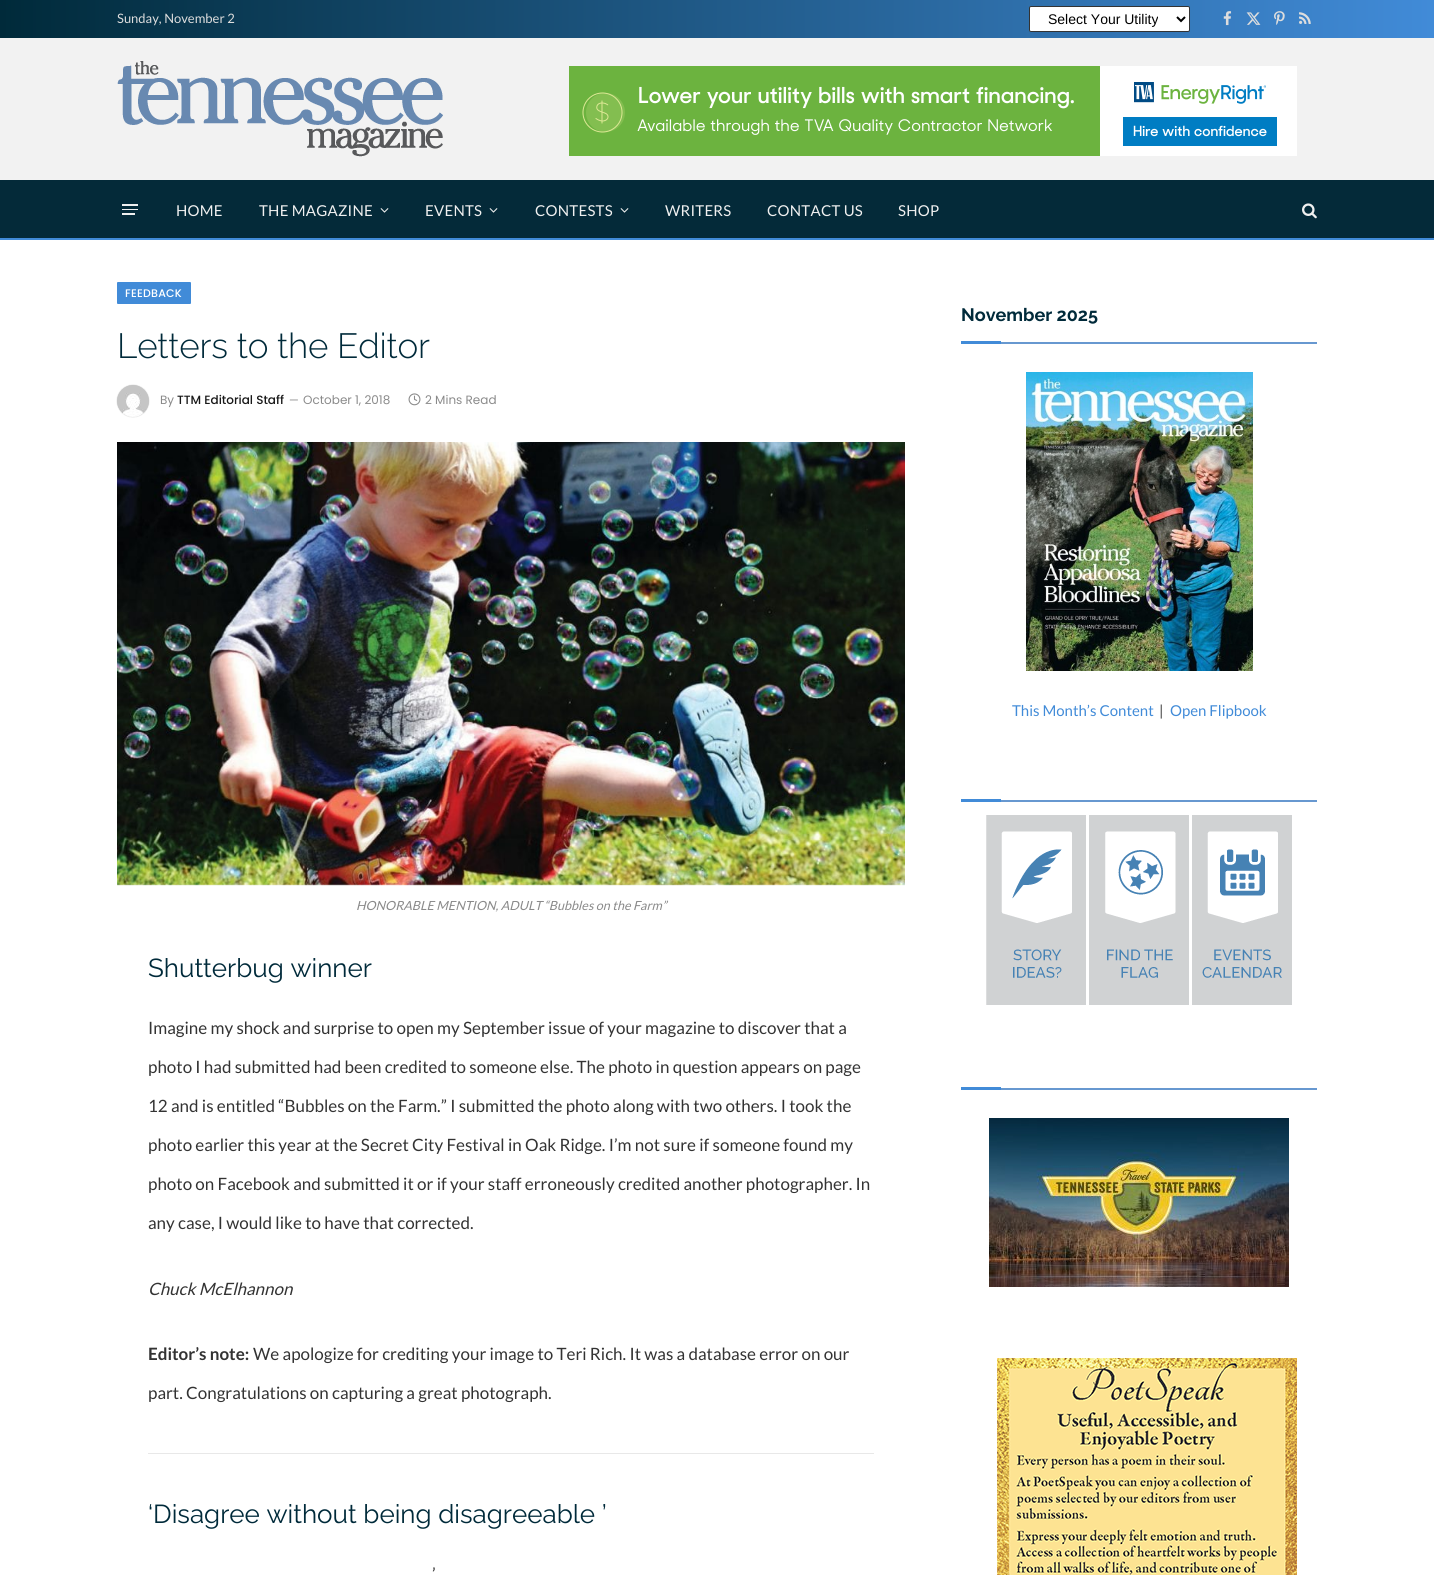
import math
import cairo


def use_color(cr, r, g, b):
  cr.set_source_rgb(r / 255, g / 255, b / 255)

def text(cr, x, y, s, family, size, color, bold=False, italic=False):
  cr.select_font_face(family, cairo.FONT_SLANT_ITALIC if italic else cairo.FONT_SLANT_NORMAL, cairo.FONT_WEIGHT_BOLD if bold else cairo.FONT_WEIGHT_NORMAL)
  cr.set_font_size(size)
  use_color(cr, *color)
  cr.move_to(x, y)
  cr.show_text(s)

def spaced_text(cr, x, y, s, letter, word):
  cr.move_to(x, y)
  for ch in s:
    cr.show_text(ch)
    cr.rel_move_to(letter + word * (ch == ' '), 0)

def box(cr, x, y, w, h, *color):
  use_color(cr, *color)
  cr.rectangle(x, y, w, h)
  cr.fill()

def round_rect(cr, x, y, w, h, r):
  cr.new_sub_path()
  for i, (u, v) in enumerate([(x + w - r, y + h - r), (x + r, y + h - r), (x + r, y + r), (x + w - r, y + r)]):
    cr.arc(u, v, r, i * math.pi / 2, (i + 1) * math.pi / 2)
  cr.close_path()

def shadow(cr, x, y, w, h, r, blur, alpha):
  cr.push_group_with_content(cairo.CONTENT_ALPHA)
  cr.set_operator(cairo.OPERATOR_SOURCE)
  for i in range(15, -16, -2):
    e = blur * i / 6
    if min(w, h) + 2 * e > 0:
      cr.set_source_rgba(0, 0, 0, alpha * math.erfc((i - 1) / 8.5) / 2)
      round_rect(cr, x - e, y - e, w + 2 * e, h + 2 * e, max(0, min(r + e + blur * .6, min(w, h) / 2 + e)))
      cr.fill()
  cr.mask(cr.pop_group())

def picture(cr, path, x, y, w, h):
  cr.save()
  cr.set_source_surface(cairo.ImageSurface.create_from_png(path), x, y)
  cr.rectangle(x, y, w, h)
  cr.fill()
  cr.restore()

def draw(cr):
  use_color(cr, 255, 255, 255)
  cr.paint()
  gradient = cairo.LinearGradient(0, 19, 1434, 19)
  gradient.add_color_stop_rgba(0, 0, 0.165, 0.227, 1)
  gradient.add_color_stop_rgba(1, 0.255, 0.545, 0.847, 1)
  cr.set_source(gradient)
  cr.rectangle(0, 0, 1434, 38)
  cr.fill()
  box(cr, 0, 38, 1434, 142, 242, 242, 242)
  use_color(cr, 0, 0, 0)
  shadow(cr, 1033, 12, 153, 18, 0, 3.5, 0.1)
  use_color(cr, 255, 255, 255)
  round_rect(cr, 1029.5, 6.5, 160, 25, 1.5)
  cr.fill_preserve()
  use_color(cr, 51, 51, 51)
  cr.set_line_width(1)
  cr.stroke()
  cr.new_path()
  cr.move_to(1177, 17)
  cr.line_to(1181, 21)
  cr.line_to(1185, 17)
  use_color(cr, 0, 0, 0)
  cr.set_line_width(2)
  cr.stroke()
  picture(cr, "img_01.png", 1223, 11, 9, 15)
  picture(cr, "img_02.png", 1246, 12, 15, 13)
  picture(cr, "img_03.png", 1274, 11, 11, 14)
  picture(cr, "img_04.png", 1299, 12, 12, 12)
  picture(cr, "img_05.png", 117, 61, 326, 96)
  picture(cr, "img_06.png", 569, 66, 728, 90)
  box(cr, 0, 180, 1434, 58, 4, 42, 57)
  box(cr, 0, 238, 1434, 2, 65, 139, 216)
  box(cr, 122, 213, 13, 2, 240, 240, 240)
  box(cr, 122, 204, 16, 2, 240, 240, 240)
  box(cr, 122, 209, 16, 1, 240, 240, 240)
  picture(cr, "img_07.png", 380, 208, 9, 5)
  picture(cr, "img_07.png", 489, 208, 9, 5)
  picture(cr, "img_07.png", 620, 208, 9, 5)
  picture(cr, "img_08.png", 1302, 203, 15, 16)
  use_color(cr, 65, 139, 216)
  round_rect(cr, 117, 282, 74, 22, 1)
  cr.fill()
  use_color(cr, 0, 0, 0)
  shadow(cr, 117, 385, 32, 32, 16, 0.5, 0.2)
  picture(cr, "img_09.png", 117, 385, 32, 32)
  picture(cr, "img_10.png", 408, 393, 13, 13)
  picture(cr, "img_11.png", 117, 442, 788, 444)
  box(cr, 148, 1453, 726, 1, 232, 232, 232)
  box(cr, 1001, 342, 316, 2, 103, 152, 208)
  box(cr, 961, 341, 40, 3, 65, 139, 216)
  picture(cr, "img_12.png", 1026, 372, 227, 299)
  box(cr, 1001, 800, 316, 2, 103, 152, 208)
  box(cr, 961, 799, 40, 3, 65, 139, 216)
  picture(cr, "img_13.png", 986, 815, 100, 190)
  picture(cr, "img_14.png", 1089, 815, 100, 190)
  picture(cr, "img_15.png", 1192, 815, 100, 190)
  box(cr, 1001, 1088, 316, 2, 103, 152, 208)
  box(cr, 961, 1087, 40, 3, 65, 139, 216)
  picture(cr, "img_16.png", 989, 1118, 300, 169)
  picture(cr, "img_17.png", 997, 1358, 300, 217)
  text(cr, 117, 23, "Sunday, November 2", "Lato", 13, (221, 221, 221))
  text(cr, 1048, 24, "Select Your Utility", "Liberation Sans", 14, (0, 0, 0))
  cr.select_font_face("Lato")
  cr.set_font_size(15)
  use_color(cr, 240, 240, 240)
  spaced_text(cr, 176, 216, "HOME", 0.25, 0)
  spaced_text(cr, 259, 216, "THE MAGAZINE", 0.25, 0)
  spaced_text(cr, 425, 216, "EVENTS", 0.25, 0)
  spaced_text(cr, 535, 216, "CONTESTS", 0.25, 0)
  spaced_text(cr, 665, 216, "WRITERS", 0.25, 0)
  spaced_text(cr, 767, 216, "CONTACT US", 0.25, 0)
  spaced_text(cr, 898, 216, "SHOP", 0.25, 0)
  cr.select_font_face("Poppins Medium")
  cr.set_font_size(11)
  use_color(cr, 255, 255, 255)
  spaced_text(cr, 125, 297, "FEEDBACK", 0.25, 0)
  cr.select_font_face("Raleway Light")
  cr.set_font_size(35)
  use_color(cr, 0, 42, 58)
  spaced_text(cr, 117, 358, "Letters to the Editor", -0.2, 0)
  text(cr, 160, 404, "By", "Poppins", 12, (138, 138, 138))
  text(cr, 177, 404, "TTM Editorial Staff", "Poppins Medium", 12, (25, 25, 25))
  text(cr, 289, 404, "—", "Poppins", 11, (138, 138, 138))
  text(cr, 303, 404, "October 1, 2018", "Poppins", 12, (138, 138, 138))
  text(cr, 425, 404, "2 Mins Read", "Poppins", 12, (138, 138, 138))
  text(cr, 356, 910, "HONORABLE MENTION, ADULT “Bubbles on the Farm”", "Lato", 12.6, (138, 138, 138), italic=True)
  text(cr, 148, 977, "Shutterbug winner", "Raleway", 26, (0, 42, 58))
  text(cr, 148, 1034, "Imagine my shock and surprise to open my September issue of your magazine to discover that a", "Lato", 17, (51, 51, 51))
  text(cr, 148, 1073, "photo I had submitted had been credited to someone else. The photo in question appears on page", "Lato", 17, (51, 51, 51))
  text(cr, 148, 1112, "12 and is entitled “Bubbles on the Farm.” I submitted the photo along with two others. I took the", "Lato", 17, (51, 51, 51))
  text(cr, 148, 1151, "photo earlier this year at the Secret City Festival in Oak Ridge. I’m not sure if someone found my", "Lato", 17, (51, 51, 51))
  text(cr, 148, 1190, "photo on Facebook and submitted it or if your staff erroneously credited another photographer. In", "Lato", 17, (51, 51, 51))
  text(cr, 148, 1229, "any case, I would like to have that corrected.", "Lato", 17, (51, 51, 51))
  text(cr, 148, 1295, "Chuck McElhannon", "Lato", 17, (51, 51, 51), italic=True)
  text(cr, 148, 1360, "Editor’s note:", "Lato", 17, (51, 51, 51), bold=True)
  text(cr, 253, 1360, "We apologize for crediting your image to Teri Rich. It was a database error on our", "Lato", 17, (51, 51, 51))
  text(cr, 148, 1399, "part. Congratulations on capturing a great photograph.", "Lato", 17, (51, 51, 51))
  text(cr, 148, 1523, "‘Disagree without being disagreeable ’", "Raleway", 26, (0, 42, 58))
  text(cr, 432, 1580, "’", "Lato", 17, (51, 51, 51))
  text(cr, 961, 321, "November 2025", "Raleway", 18, (0, 42, 58), bold=True)
  text(cr, 1012, 716, "This Month’s Content", "Lato", 15, (65, 139, 216))
  text(cr, 1159, 716, "|", "Lato", 15, (68, 68, 68))
  text(cr, 1170, 716, "Open Flipbook", "Lato", 15, (65, 139, 216))


surface = cairo.ImageSurface(cairo.FORMAT_RGB24, 1434, 1575)
cr = cairo.Context(surface)
options = cairo.FontOptions()
options.set_hint_metrics(cairo.HINT_METRICS_OFF)
options.set_hint_style(cairo.HINT_STYLE_NONE)
cr.set_font_options(options)
cr.set_miter_limit(4)
draw(cr)
surface.write_to_png("out.png")
